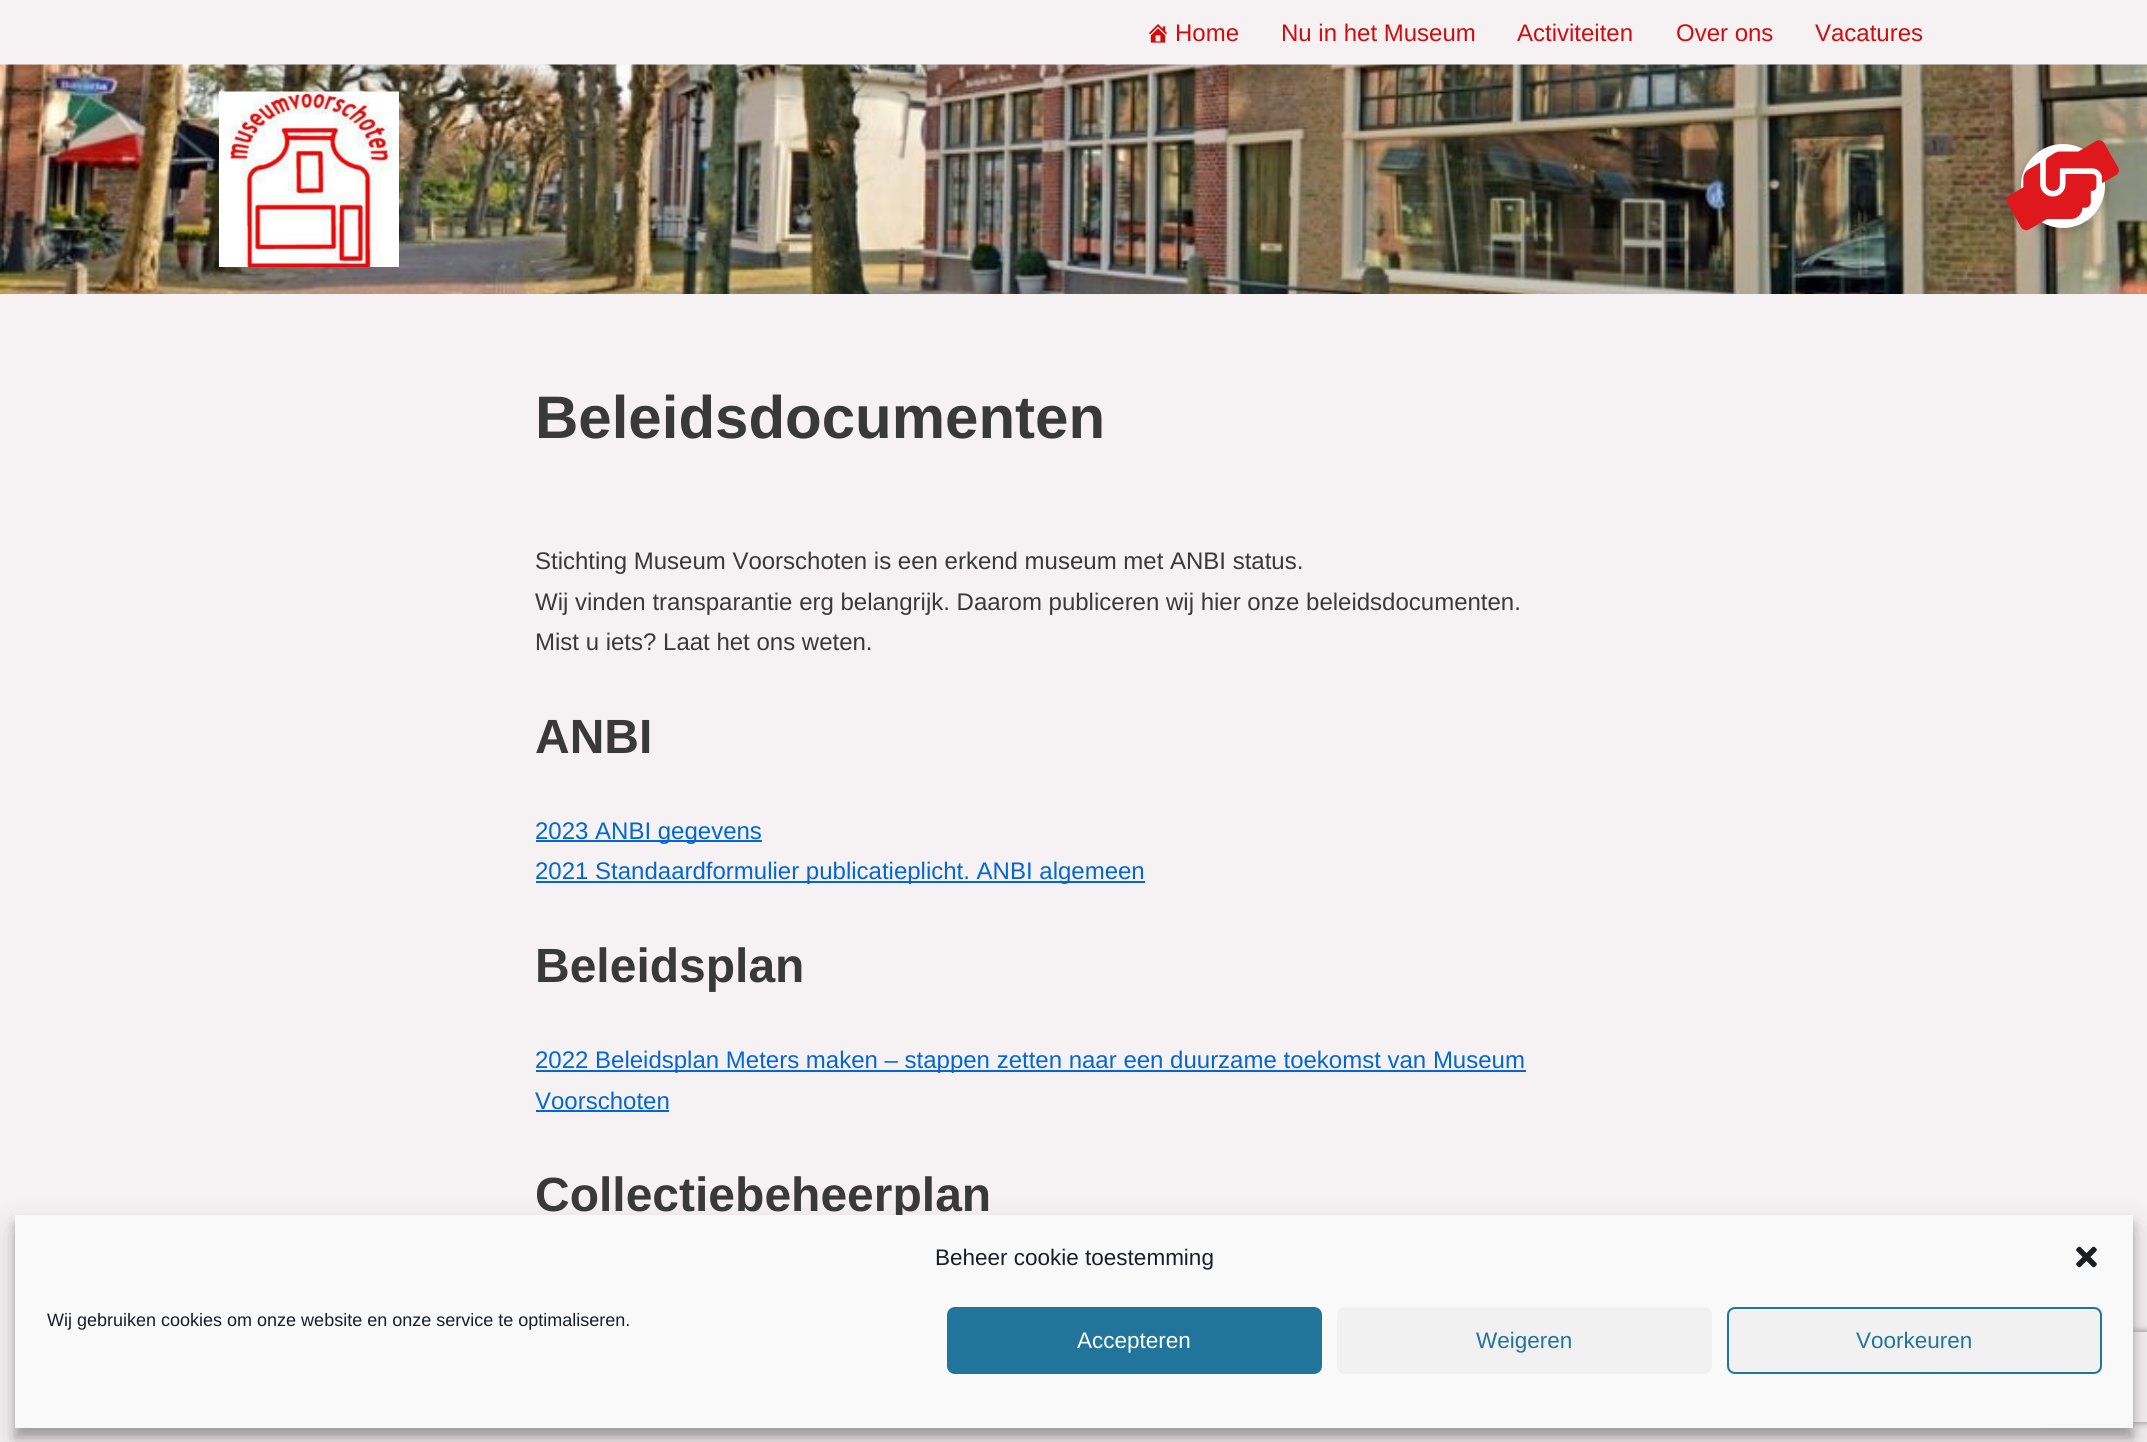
import math
import cairo


def use_color(cr, r, g, b):
  cr.set_source_rgb(r / 255, g / 255, b / 255)

def text(cr, x, y, s, family, size, color, bold=False, italic=False):
  cr.select_font_face(family, cairo.FONT_SLANT_ITALIC if italic else cairo.FONT_SLANT_NORMAL, cairo.FONT_WEIGHT_BOLD if bold else cairo.FONT_WEIGHT_NORMAL)
  cr.set_font_size(size)
  use_color(cr, *color)
  cr.move_to(x, y)
  cr.show_text(s)

def box(cr, x, y, w, h, *color):
  use_color(cr, *color)
  cr.rectangle(x, y, w, h)
  cr.fill()

def round_rect(cr, x, y, w, h, r):
  cr.new_sub_path()
  for i, (u, v) in enumerate([(x + w - r, y + h - r), (x + r, y + h - r), (x + r, y + r), (x + w - r, y + r)]):
    cr.arc(u, v, r, i * math.pi / 2, (i + 1) * math.pi / 2)
  cr.close_path()

def shadow(cr, x, y, w, h, r, blur, alpha):
  cr.push_group_with_content(cairo.CONTENT_ALPHA)
  cr.set_operator(cairo.OPERATOR_SOURCE)
  for i in range(15, -16, -2):
    e = blur * i / 6
    if min(w, h) + 2 * e > 0:
      cr.set_source_rgba(0, 0, 0, alpha * math.erfc((i - 1) / 8.5) / 2)
      round_rect(cr, x - e, y - e, w + 2 * e, h + 2 * e, max(0, min(r + e + blur * .6, min(w, h) / 2 + e)))
      cr.fill()
  cr.mask(cr.pop_group())

def picture(cr, path, x, y, w, h):
  cr.save()
  cr.set_source_surface(cairo.ImageSurface.create_from_png(path), x, y)
  cr.rectangle(x, y, w, h)
  cr.fill()
  cr.restore()

def draw(cr):
  use_color(cr, 246, 242, 244)
  cr.paint()
  picture(cr, "img_01.png", 1149, 24, 18, 19)
  picture(cr, "img_02.png", 0, 64, 2147, 230)
  picture(cr, "img_03.png", 219, 91, 180, 176)
  box(cr, 536, 840, 226, 2, 3, 102, 214)
  box(cr, 536, 881, 609, 2, 3, 102, 214)
  box(cr, 536, 1070, 990, 2, 3, 102, 214)
  box(cr, 536, 1110, 133, 2, 3, 102, 214)
  use_color(cr, 0, 0, 0)
  shadow(cr, 2019, 146, 87, 87, 43.5, 4.5, 0.2)
  use_color(cr, 255, 255, 255)
  cr.arc(2063, 186, 42, 0, 2 * math.pi)
  cr.fill()
  picture(cr, "img_04.png", 2006, 140, 113, 91)
  use_color(cr, 0, 0, 0)
  shadow(cr, 15, 1224, 2118, 213, 0, 4.5, 0.23)
  shadow(cr, 15, 1230, 2118, 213, 0, 15, 0.19)
  cr.save()
  cr.set_fill_rule(cairo.FILL_RULE_EVEN_ODD)
  cr.new_path()
  cr.move_to(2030, 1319)
  cr.line_to(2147, 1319)
  cr.line_to(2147, 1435)
  cr.line_to(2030, 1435)
  cr.close_path()
  cr.move_to(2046, 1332)
  cr.line_to(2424, 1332)
  cr.curve_to(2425.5, 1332, 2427, 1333.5, 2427, 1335)
  cr.line_to(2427, 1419)
  cr.curve_to(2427, 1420.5, 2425.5, 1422, 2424, 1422)
  cr.line_to(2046, 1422)
  cr.curve_to(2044.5, 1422, 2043, 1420.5, 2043, 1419)
  cr.line_to(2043, 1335)
  cr.curve_to(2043, 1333.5, 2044.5, 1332, 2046, 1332)
  cr.close_path()
  cr.clip()
  use_color(cr, 128, 128, 128)
  shadow(cr, 2043, 1332, 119, 90, 3, 4, 1)
  cr.restore()
  text(cr, 1175, 41, "Home", "Liberation Sans", 24, (211, 11, 11))
  text(cr, 1281, 41, "Nu in het Museum", "Liberation Sans", 24, (211, 11, 11))
  text(cr, 1517, 41, "Activiteiten", "Liberation Sans", 24, (211, 11, 11))
  text(cr, 1676, 41, "Over ons", "Liberation Sans", 24, (211, 11, 11))
  text(cr, 1815, 41, "Vacatures", "Liberation Sans", 24, (211, 11, 11))
  text(cr, 535, 438, "Beleidsdocumenten", "Liberation Sans", 60, (57, 57, 57), bold=True)
  text(cr, 535, 569, "Stichting Museum Voorschoten is een erkend museum met ANBI status.", "Liberation Sans", 24, (57, 57, 57))
  text(cr, 535, 610, "Wij vinden transparantie erg belangrijk. Daarom publiceren wij hier onze beleidsdocumenten.", "Liberation Sans", 24, (57, 57, 57))
  text(cr, 535, 650, "Mist u iets? Laat het ons weten.", "Liberation Sans", 24, (57, 57, 57))
  text(cr, 535, 753, "ANBI", "Liberation Sans", 48, (57, 57, 57), bold=True)
  text(cr, 535, 839, "2023 ANBI gegevens", "Liberation Sans", 24, (3, 102, 214))
  text(cr, 535, 879, "2021 Standaardformulier publicatieplicht. ANBI algemeen", "Liberation Sans", 24, (3, 102, 214))
  text(cr, 535, 982, "Beleidsplan", "Liberation Sans", 48, (57, 57, 57), bold=True)
  text(cr, 535, 1068, "2022 Beleidsplan Meters maken – stappen zetten naar een duurzame toekomst van Museum", "Liberation Sans", 24, (3, 102, 214))
  text(cr, 535, 1109, "Voorschoten", "Liberation Sans", 24, (3, 102, 214))
  text(cr, 535, 1211, "Collectiebeheerplan", "Liberation Sans", 48, (57, 57, 57), bold=True)
  box(cr, 15, 1215, 2118, 213, 249, 249, 249)
  text(cr, 935, 1265, "Beheer cookie toestemming", "Liberation Sans", 22.5, (25, 30, 35))
  picture(cr, "img_05.png", 2076, 1246, 21, 22)
  text(cr, 47, 1326, "Wij gebruiken cookies om onze website en onze service te optimaliseren.", "Liberation Sans", 18, (25, 30, 35))
  use_color(cr, 33, 117, 155)
  round_rect(cr, 948, 1308, 373, 65, 7)
  cr.fill_preserve()
  cr.stroke()
  text(cr, 1077, 1348, "Accepteren", "Liberation Sans", 22.5, (255, 255, 255))
  use_color(cr, 241, 241, 241)
  round_rect(cr, 1337, 1307, 375, 67, 8)
  cr.fill()
  text(cr, 1476, 1348, "Weigeren", "Liberation Sans", 22.5, (33, 117, 155))
  use_color(cr, 241, 241, 241)
  round_rect(cr, 1728, 1308, 373, 65, 7)
  cr.fill_preserve()
  use_color(cr, 33, 117, 155)
  cr.stroke()
  text(cr, 1856, 1348, "Voorkeuren", "Liberation Sans", 22.5, (33, 117, 155))


surface = cairo.ImageSurface(cairo.FORMAT_RGB24, 2147, 1442)
cr = cairo.Context(surface)
options = cairo.FontOptions()
options.set_hint_metrics(cairo.HINT_METRICS_OFF)
options.set_hint_style(cairo.HINT_STYLE_NONE)
cr.set_font_options(options)
cr.set_miter_limit(4)
draw(cr)
surface.write_to_png("out.png")
